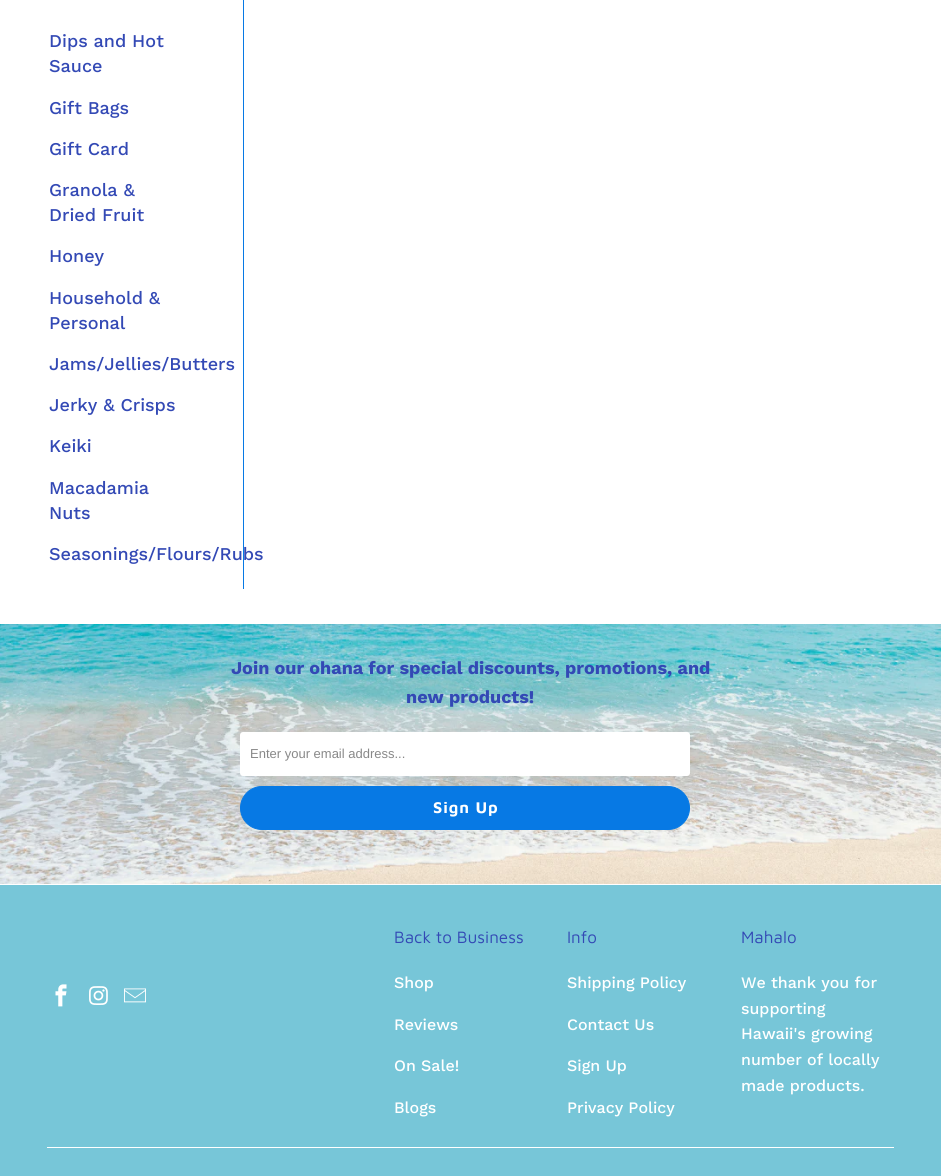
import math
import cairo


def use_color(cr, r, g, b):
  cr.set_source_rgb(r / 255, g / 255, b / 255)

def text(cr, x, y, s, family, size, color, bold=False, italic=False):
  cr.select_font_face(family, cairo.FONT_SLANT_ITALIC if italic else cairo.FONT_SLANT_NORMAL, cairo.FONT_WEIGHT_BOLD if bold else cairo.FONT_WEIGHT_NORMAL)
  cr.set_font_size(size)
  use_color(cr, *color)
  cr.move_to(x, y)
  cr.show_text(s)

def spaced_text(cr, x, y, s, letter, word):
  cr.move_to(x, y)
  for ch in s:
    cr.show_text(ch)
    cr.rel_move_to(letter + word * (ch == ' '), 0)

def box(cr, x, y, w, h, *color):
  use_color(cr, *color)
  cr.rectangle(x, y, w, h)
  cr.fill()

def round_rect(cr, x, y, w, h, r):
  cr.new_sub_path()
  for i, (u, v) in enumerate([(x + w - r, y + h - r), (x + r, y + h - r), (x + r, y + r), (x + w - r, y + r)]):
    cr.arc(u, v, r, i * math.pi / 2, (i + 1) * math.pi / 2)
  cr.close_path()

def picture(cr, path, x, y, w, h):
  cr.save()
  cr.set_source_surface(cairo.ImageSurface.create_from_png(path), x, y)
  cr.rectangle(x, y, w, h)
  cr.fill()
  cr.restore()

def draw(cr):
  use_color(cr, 255, 255, 255)
  cr.paint()
  box(cr, 243, 0, 1, 589, 7, 121, 228)
  picture(cr, "img_01.png", 0, 624, 941, 260)
  use_color(cr, 255, 255, 255)
  round_rect(cr, 240, 732, 450, 44, 3)
  cr.fill()
  use_color(cr, 7, 121, 228)
  round_rect(cr, 240.5, 786.5, 449, 43, 21.5)
  cr.fill_preserve()
  cr.set_line_width(1)
  cr.stroke()
  box(cr, 0, 885, 941, 291, 119, 198, 216)
  picture(cr, "img_02.png", 55, 984, 12, 23)
  picture(cr, "img_03.png", 89, 986, 19, 19)
  picture(cr, "img_04.png", 124, 988, 22, 15)
  box(cr, 47, 1147, 847, 1, 255, 255, 255)
  text(cr, 49, 47, "Dips and Hot", "Work Sans Medium", 18, (51, 73, 181))
  text(cr, 49, 72, "Sauce", "Work Sans Medium", 18, (51, 73, 181))
  text(cr, 49, 114, "Gift Bags", "Work Sans Medium", 18, (51, 73, 181))
  text(cr, 49, 155, "Gift Card", "Work Sans Medium", 18, (51, 73, 181))
  text(cr, 49, 196, "Granola &", "Work Sans Medium", 18, (51, 73, 181))
  text(cr, 49, 221, "Dried Fruit", "Work Sans Medium", 18, (51, 73, 181))
  text(cr, 49, 262, "Honey", "Work Sans Medium", 18, (51, 73, 181))
  text(cr, 49, 304, "Household &", "Work Sans Medium", 18, (51, 73, 181))
  text(cr, 49, 329, "Personal", "Work Sans Medium", 18, (51, 73, 181))
  text(cr, 49, 370, "Jams/Jellies/Butters", "Work Sans Medium", 18, (51, 73, 181))
  text(cr, 49, 411, "Jerky & Crisps", "Work Sans Medium", 18, (51, 73, 181))
  text(cr, 49, 452, "Keiki", "Work Sans Medium", 18, (51, 73, 181))
  text(cr, 49, 494, "Macadamia", "Work Sans Medium", 18, (51, 73, 181))
  text(cr, 49, 519, "Nuts", "Work Sans Medium", 18, (51, 73, 181))
  text(cr, 49, 560, "Seasonings/Flours/Rubs", "Work Sans Medium", 18, (51, 73, 181))
  text(cr, 231, 674, "Join our ohana for special discounts, promotions, and", "Work Sans", 18, (51, 73, 181), bold=True)
  text(cr, 406, 703, "new products!", "Work Sans", 18, (51, 73, 181), bold=True)
  text(cr, 250, 758, "Enter your email address...", "Liberation Sans", 13, (136, 136, 136))
  cr.select_font_face("Maven Pro", cairo.FONT_SLANT_NORMAL, cairo.FONT_WEIGHT_BOLD)
  cr.set_font_size(16)
  use_color(cr, 255, 255, 255)
  spaced_text(cr, 433, 813, "Sign Up", 1, 0)
  text(cr, 394, 943, "Back to Business", "Maven Pro", 17, (51, 73, 181))
  text(cr, 394, 988, "Shop", "Work Sans Medium", 16, (255, 255, 255))
  text(cr, 394, 1030, "Reviews", "Work Sans Medium", 16, (255, 255, 255))
  text(cr, 394, 1071, "On Sale!", "Work Sans Medium", 16, (255, 255, 255))
  text(cr, 394, 1113, "Blogs", "Work Sans Medium", 16, (255, 255, 255))
  text(cr, 567, 943, "Info", "Maven Pro", 17, (51, 73, 181))
  text(cr, 567, 988, "Shipping Policy", "Work Sans Medium", 16, (255, 255, 255))
  text(cr, 567, 1030, "Contact Us", "Work Sans Medium", 16, (255, 255, 255))
  text(cr, 567, 1071, "Sign Up", "Work Sans Medium", 16, (255, 255, 255))
  text(cr, 567, 1113, "Privacy Policy", "Work Sans Medium", 16, (255, 255, 255))
  text(cr, 741, 943, "Mahalo", "Maven Pro", 17, (51, 73, 181))
  text(cr, 741, 988, "We thank you for", "Work Sans Medium", 16, (255, 255, 255))
  text(cr, 741, 1014, "supporting", "Work Sans Medium", 16, (255, 255, 255))
  text(cr, 741, 1039, "Hawaii's growing", "Work Sans Medium", 16, (255, 255, 255))
  text(cr, 741, 1065, "number of locally", "Work Sans Medium", 16, (255, 255, 255))
  text(cr, 741, 1091, "made products.", "Work Sans Medium", 16, (255, 255, 255))


surface = cairo.ImageSurface(cairo.FORMAT_RGB24, 941, 1176)
cr = cairo.Context(surface)
options = cairo.FontOptions()
options.set_hint_metrics(cairo.HINT_METRICS_OFF)
options.set_hint_style(cairo.HINT_STYLE_NONE)
cr.set_font_options(options)
cr.set_miter_limit(4)
draw(cr)
surface.write_to_png("out.png")
